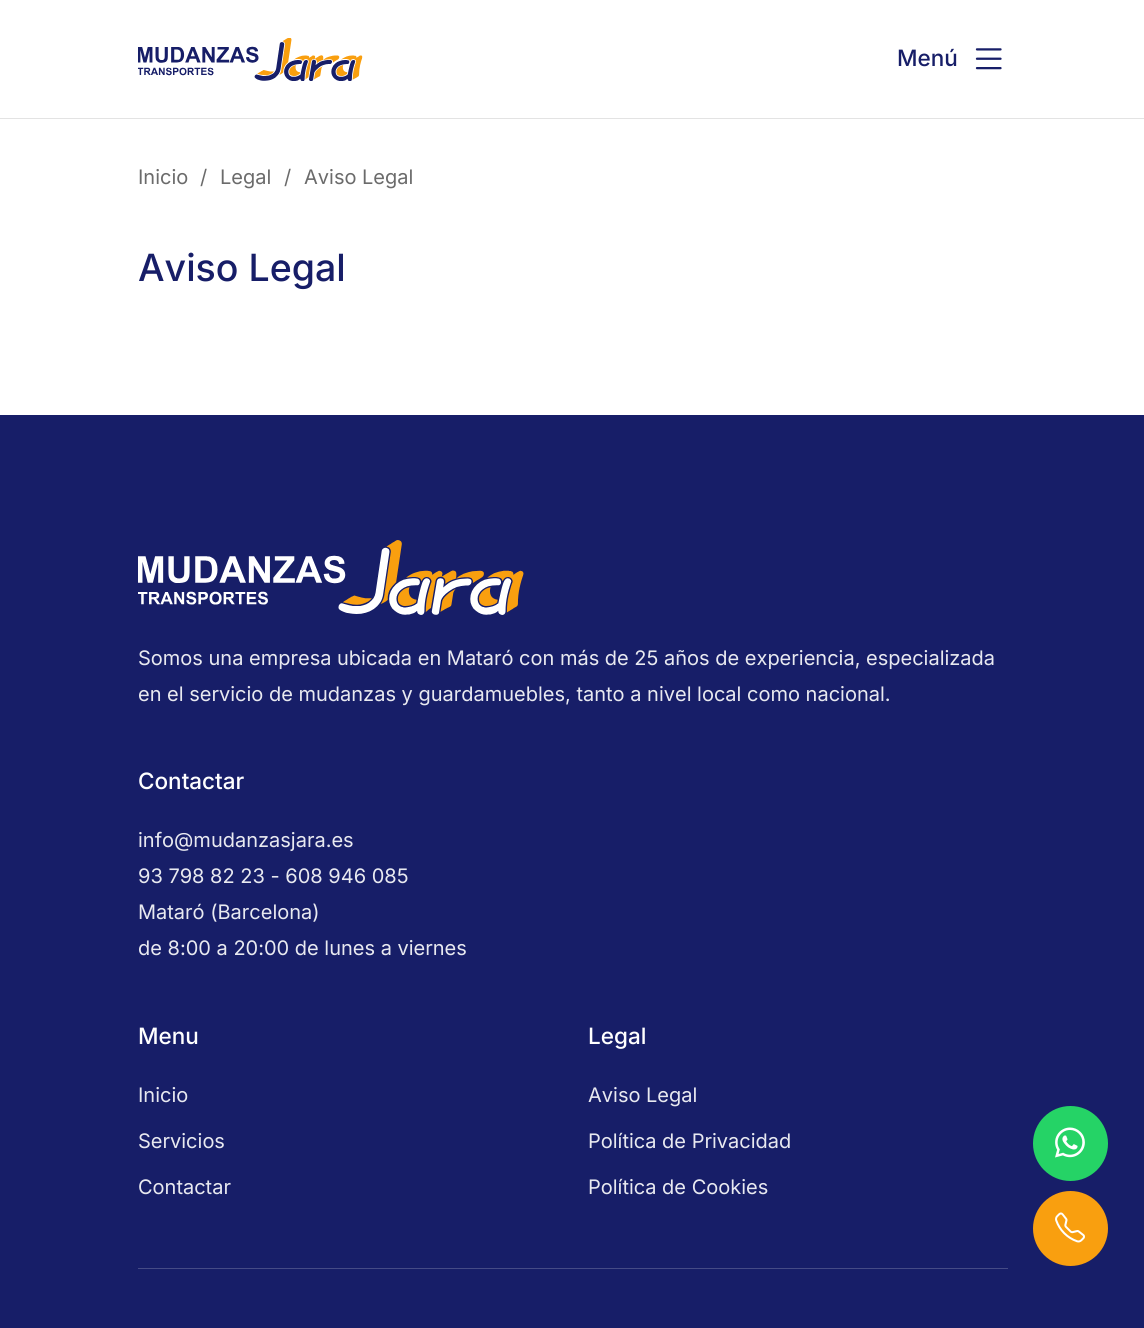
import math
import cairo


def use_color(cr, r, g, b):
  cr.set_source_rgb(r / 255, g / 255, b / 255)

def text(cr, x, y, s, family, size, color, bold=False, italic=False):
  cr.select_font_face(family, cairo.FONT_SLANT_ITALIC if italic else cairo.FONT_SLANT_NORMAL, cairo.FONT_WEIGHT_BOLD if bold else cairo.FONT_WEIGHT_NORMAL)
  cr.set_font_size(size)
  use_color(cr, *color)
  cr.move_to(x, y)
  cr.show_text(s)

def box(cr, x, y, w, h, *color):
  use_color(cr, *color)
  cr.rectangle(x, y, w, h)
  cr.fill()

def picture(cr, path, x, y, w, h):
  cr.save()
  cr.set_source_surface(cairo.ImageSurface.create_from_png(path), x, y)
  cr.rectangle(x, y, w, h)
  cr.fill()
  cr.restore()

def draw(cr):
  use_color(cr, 255, 255, 255)
  cr.paint()
  box(cr, 0, 118, 1144, 1, 227, 227, 227)
  picture(cr, "img_01.png", 138, 38, 225, 43)
  picture(cr, "img_02.png", 975, 48, 27, 22)
  box(cr, 0, 415, 1144, 913, 23, 30, 104)
  picture(cr, "img_03.png", 138, 540, 386, 75)
  box(cr, 138, 1268, 870, 1, 69, 75, 134)
  use_color(cr, 37, 211, 102)
  cr.arc(1070.5, 1143.5, 37.5, 0, 2 * math.pi)
  cr.fill()
  picture(cr, "img_04.png", 1055, 1127, 30, 31)
  use_color(cr, 249, 159, 15)
  cr.arc(1070.5, 1228.5, 37.5, 0, 2 * math.pi)
  cr.fill()
  picture(cr, "img_05.png", 1055, 1212, 30, 31)
  text(cr, 897, 66, "Menú", "Inter Medium", 22.5, (23, 30, 104))
  text(cr, 138, 184, "Inicio", "Inter", 20, (107, 107, 107))
  text(cr, 200, 184, "/", "Inter", 20, (107, 107, 107))
  text(cr, 220, 184, "Legal", "Inter", 20, (107, 107, 107))
  text(cr, 284, 184, "/", "Inter", 20, (107, 107, 107))
  text(cr, 304, 184, "Aviso Legal", "Inter", 20, (107, 107, 107))
  text(cr, 138, 281, "Aviso Legal", "Inter Medium", 37.5, (23, 30, 104))
  text(cr, 138, 665, "Somos una empresa ubicada en Mataró con más de 25 años de experiencia, especializada", "Inter", 20, (232, 233, 240))
  text(cr, 138, 701, "en el servicio de mudanzas y guardamuebles, tanto a nivel local como nacional.", "Inter", 20, (232, 233, 240))
  text(cr, 138, 789, "Contactar", "Inter Medium", 22.5, (255, 255, 255))
  text(cr, 138, 847, "info@mudanzasjara.es", "Inter", 20, (232, 233, 240))
  text(cr, 138, 883, "93 798 82 23 - 608 946 085", "Inter", 20, (232, 233, 240))
  text(cr, 138, 919, "Mataró (Barcelona)", "Inter", 20, (232, 233, 240))
  text(cr, 138, 955, "de 8:00 a 20:00 de lunes a viernes", "Inter", 20, (232, 233, 240))
  text(cr, 138, 1044, "Menu", "Inter Medium", 22.5, (255, 255, 255))
  text(cr, 138, 1102, "Inicio", "Inter", 20, (232, 233, 240))
  text(cr, 138, 1148, "Servicios", "Inter", 20, (232, 233, 240))
  text(cr, 138, 1194, "Contactar", "Inter", 20, (232, 233, 240))
  text(cr, 588, 1044, "Legal", "Inter Medium", 22.5, (255, 255, 255))
  text(cr, 588, 1102, "Aviso Legal", "Inter", 20, (232, 233, 240))
  text(cr, 588, 1148, "Política de Privacidad", "Inter", 20, (232, 233, 240))
  text(cr, 588, 1194, "Política de Cookies", "Inter", 20, (232, 233, 240))


surface = cairo.ImageSurface(cairo.FORMAT_RGB24, 1144, 1328)
cr = cairo.Context(surface)
options = cairo.FontOptions()
options.set_hint_metrics(cairo.HINT_METRICS_OFF)
options.set_hint_style(cairo.HINT_STYLE_NONE)
cr.set_font_options(options)
cr.set_miter_limit(4)
draw(cr)
surface.write_to_png("out.png")
